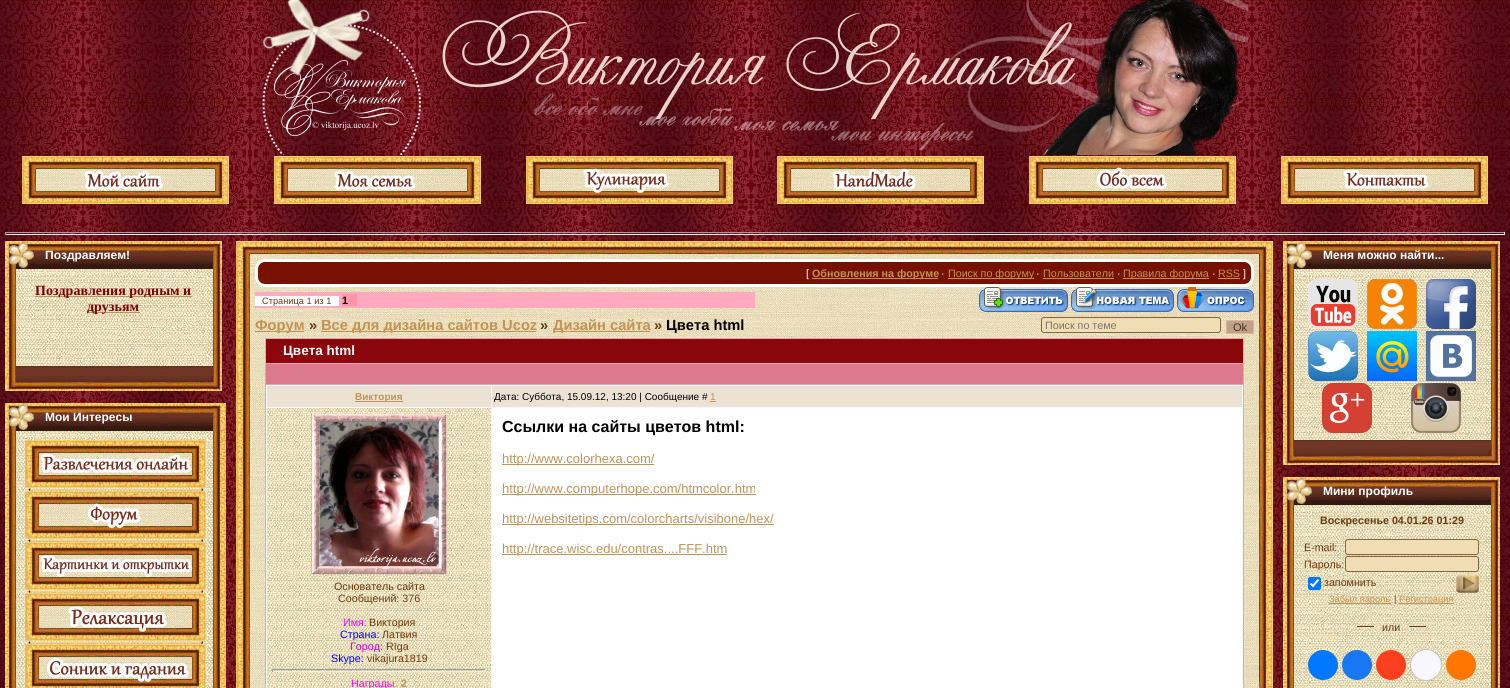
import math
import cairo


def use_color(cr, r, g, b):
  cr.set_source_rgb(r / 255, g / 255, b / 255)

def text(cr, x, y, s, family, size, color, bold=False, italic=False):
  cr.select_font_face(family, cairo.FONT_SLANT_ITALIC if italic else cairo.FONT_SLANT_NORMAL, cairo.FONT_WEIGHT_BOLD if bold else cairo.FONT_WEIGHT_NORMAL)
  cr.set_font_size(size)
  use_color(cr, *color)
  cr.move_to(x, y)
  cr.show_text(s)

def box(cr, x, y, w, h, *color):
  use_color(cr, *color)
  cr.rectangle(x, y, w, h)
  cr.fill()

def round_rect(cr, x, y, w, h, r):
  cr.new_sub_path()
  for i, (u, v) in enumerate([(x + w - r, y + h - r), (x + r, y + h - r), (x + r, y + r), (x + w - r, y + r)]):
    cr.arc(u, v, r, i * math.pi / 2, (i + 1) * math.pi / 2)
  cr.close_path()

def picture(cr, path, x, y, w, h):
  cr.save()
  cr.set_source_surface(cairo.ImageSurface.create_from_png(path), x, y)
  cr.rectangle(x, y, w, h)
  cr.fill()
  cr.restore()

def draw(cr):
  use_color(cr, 255, 255, 255)
  cr.paint()
  picture(cr, "img_01.png", 0, 0, 1510, 688)
  picture(cr, "img_02.png", 262, 0, 986, 155)
  picture(cr, "img_03.png", 22, 156, 207, 48)
  picture(cr, "img_04.png", 274, 156, 207, 48)
  picture(cr, "img_05.png", 526, 156, 207, 48)
  picture(cr, "img_06.png", 777, 156, 207, 48)
  picture(cr, "img_07.png", 1029, 156, 207, 48)
  picture(cr, "img_08.png", 1281, 156, 207, 48)
  box(cr, 5, 232, 1500, 1, 159, 159, 159)
  box(cr, 1504, 232, 1, 3, 238, 238, 238)
  box(cr, 5, 234, 1500, 1, 238, 238, 238)
  box(cr, 5, 232, 1, 3, 159, 159, 159)
  picture(cr, "img_09.png", 5, 273, 217, 87)
  picture(cr, "img_10.png", 5, 241, 217, 32)
  box(cr, 35, 296, 157, 1, 193, 147, 85)
  box(cr, 87, 312, 53, 1, 193, 147, 85)
  picture(cr, "img_11.png", 5, 360, 217, 31)
  picture(cr, "img_12.png", 5, 435, 221, 253)
  picture(cr, "img_13.png", 5, 403, 221, 32)
  picture(cr, "img_14.png", 25, 440, 181, 48)
  picture(cr, "img_15.png", 28, 488, 176, 3)
  picture(cr, "img_16.png", 25, 491, 181, 48)
  picture(cr, "img_17.png", 28, 539, 176, 3)
  picture(cr, "img_18.png", 25, 542, 181, 48)
  picture(cr, "img_19.png", 28, 590, 176, 3)
  picture(cr, "img_20.png", 25, 593, 181, 48)
  picture(cr, "img_21.png", 28, 641, 176, 3)
  picture(cr, "img_22.png", 25, 644, 181, 44)
  picture(cr, "img_23.png", 236, 241, 14, 13)
  picture(cr, "img_24.png", 250, 241, 1009, 13)
  picture(cr, "img_25.png", 1259, 241, 14, 13)
  picture(cr, "img_26.png", 236, 254, 14, 434)
  picture(cr, "img_27.png", 250, 254, 1009, 434)
  use_color(cr, 119, 17, 0)
  round_rect(cr, 256.5, 260.5, 996, 25, 8.5)
  cr.fill_preserve()
  use_color(cr, 255, 255, 255)
  cr.set_line_width(3)
  cr.stroke()
  box(cr, 812, 278, 126, 1, 193, 147, 85)
  box(cr, 948, 278, 86, 1, 193, 147, 85)
  box(cr, 1043, 278, 71, 1, 193, 147, 85)
  box(cr, 1123, 278, 86, 1, 193, 147, 85)
  box(cr, 1218, 278, 22, 1, 193, 147, 85)
  box(cr, 255, 292, 500, 16, 255, 170, 192)
  box(cr, 255, 296, 84, 10, 255, 255, 255)
  box(cr, 342, 294, 15, 12, 255, 149, 169)
  picture(cr, "img_28.png", 979, 287, 89, 25)
  picture(cr, "img_29.png", 1071, 287, 103, 25)
  picture(cr, "img_30.png", 1177, 287, 77, 25)
  box(cr, 255, 331, 49, 1, 193, 147, 85)
  box(cr, 321, 331, 215, 1, 193, 147, 85)
  box(cr, 553, 331, 97, 1, 193, 147, 85)
  use_color(cr, 240, 221, 180)
  round_rect(cr, 1041.5, 317.5, 179, 15, 2.5)
  cr.fill_preserve()
  use_color(cr, 134, 101, 69)
  cr.set_line_width(1)
  cr.stroke()
  use_color(cr, 195, 160, 135)
  cr.rectangle(1226.5, 320.5, 27, 13)
  cr.fill_preserve()
  use_color(cr, 217, 182, 160)
  cr.stroke()
  box(cr, 265, 338, 979, 350, 228, 165, 183)
  picture(cr, "img_31.png", 266, 339, 977, 24)
  box(cr, 266, 364, 977, 20, 221, 121, 140)
  box(cr, 266, 385, 977, 303, 245, 249, 253)
  box(cr, 267, 386, 224, 21, 235, 226, 212)
  box(cr, 355, 401, 48, 1, 193, 147, 85)
  box(cr, 492, 386, 750, 21, 235, 226, 212)
  box(cr, 710, 401, 6, 1, 193, 147, 85)
  box(cr, 492, 408, 750, 280, 255, 255, 255)
  box(cr, 502, 464, 152, 1, 193, 147, 85)
  box(cr, 502, 494, 254, 1, 193, 147, 85)
  box(cr, 502, 524, 272, 1, 193, 147, 85)
  box(cr, 502, 554, 225, 1, 193, 147, 85)
  picture(cr, "img_32.png", 267, 408, 224, 280)
  picture(cr, "img_33.png", 311, 413, 136, 162)
  box(cr, 272, 669, 214, 1, 159, 159, 159)
  box(cr, 485, 669, 1, 3, 238, 238, 238)
  box(cr, 272, 671, 214, 1, 238, 238, 238)
  box(cr, 272, 669, 1, 3, 159, 159, 159)
  picture(cr, "img_34.png", 1259, 254, 14, 434)
  picture(cr, "img_35.png", 1283, 273, 217, 161)
  picture(cr, "img_10.png", 1283, 241, 217, 32)
  picture(cr, "img_36.png", 1308, 279, 50, 50)
  picture(cr, "img_37.png", 1367, 279, 50, 50)
  picture(cr, "img_38.png", 1426, 279, 50, 50)
  picture(cr, "img_39.png", 1308, 331, 50, 50)
  picture(cr, "img_40.png", 1367, 331, 50, 50)
  picture(cr, "img_41.png", 1426, 331, 50, 50)
  picture(cr, "img_42.png", 1322, 383, 50, 50)
  picture(cr, "img_43.png", 1411, 383, 50, 50)
  picture(cr, "img_11.png", 1283, 434, 217, 31)
  picture(cr, "img_44.png", 1283, 509, 217, 179)
  picture(cr, "img_10.png", 1283, 477, 217, 32)
  use_color(cr, 240, 221, 180)
  round_rect(cr, 1345.5, 539.5, 133, 15, 2.5)
  cr.fill_preserve()
  use_color(cr, 134, 101, 69)
  cr.stroke()
  use_color(cr, 240, 221, 180)
  round_rect(cr, 1345.5, 556.5, 133, 15, 2.5)
  cr.fill_preserve()
  use_color(cr, 134, 101, 69)
  cr.stroke()
  use_color(cr, 0, 117, 255)
  round_rect(cr, 1308, 577, 13, 13, 2)
  cr.fill()
  cr.new_path()
  cr.move_to(1310.5, 583.5)
  cr.line_to(1313, 586)
  cr.line_to(1318.5, 579.5)
  use_color(cr, 255, 255, 255)
  cr.set_line_width(2.1)
  cr.stroke()
  picture(cr, "img_45.png", 1456, 574, 23, 19)
  box(cr, 1329, 603, 62, 1, 193, 147, 85)
  box(cr, 1399, 603, 55, 1, 193, 147, 85)
  box(cr, 1357, 626, 17, 1, 109, 57, 13)
  box(cr, 1409, 626, 17, 1, 109, 57, 13)
  use_color(cr, 0, 119, 255)
  cr.arc(1323, 665, 15, 0, 2 * math.pi)
  cr.fill()
  use_color(cr, 24, 119, 242)
  cr.arc(1357, 665, 15, 0, 2 * math.pi)
  cr.fill()
  use_color(cr, 252, 63, 29)
  cr.arc(1391, 665, 15, 0, 2 * math.pi)
  cr.fill()
  use_color(cr, 248, 248, 252)
  cr.arc(1426, 665, 15.5, 0, 2 * math.pi)
  cr.fill_preserve()
  use_color(cr, 196, 196, 196)
  cr.set_line_width(1)
  cr.stroke()
  use_color(cr, 255, 119, 0)
  cr.arc(1461, 665, 15, 0, 2 * math.pi)
  cr.fill()
  text(cr, 45, 259, "Поздравляем!", "Liberation Sans", 12, (255, 255, 255), bold=True)
  text(cr, 35, 295, "Поздравления родным и", "Liberation Serif", 14, (128, 0, 0), bold=True)
  text(cr, 87, 311, "друзьям", "Liberation Serif", 14, (128, 0, 0), bold=True)
  text(cr, 45, 421, "Мои Интересы", "Liberation Sans", 12, (255, 255, 255), bold=True)
  text(cr, 806, 277, "[", "Liberation Sans", 10.7, (255, 255, 255))
  text(cr, 812, 277, "Обновления на форуме", "Liberation Sans", 10.7, (193, 147, 85), bold=True)
  text(cr, 941, 277, "·", "Liberation Sans", 10.7, (255, 255, 255))
  text(cr, 948, 277, "Поиск по форуму", "Liberation Sans", 10.7, (193, 147, 85))
  text(cr, 1036, 277, "·", "Liberation Sans", 10.7, (255, 255, 255))
  text(cr, 1043, 277, "Пользователи", "Liberation Sans", 10.7, (193, 147, 85))
  text(cr, 1117, 277, "·", "Liberation Sans", 10.7, (255, 255, 255))
  text(cr, 1123, 277, "Правила форума", "Liberation Sans", 10.7, (193, 147, 85))
  text(cr, 1212, 277, "·", "Liberation Sans", 10.7, (255, 255, 255))
  text(cr, 1218, 277, "RSS", "Liberation Sans", 10.7, (193, 147, 85))
  text(cr, 1243, 277, "]", "Liberation Sans", 10.7, (255, 255, 255))
  text(cr, 262, 304, "Страница 1 из 1", "Liberation Sans", 9.25, (109, 57, 13))
  text(cr, 342, 304, "1", "Liberation Sans", 10.7, (0, 0, 0), bold=True)
  text(cr, 255, 330, "Форум", "Liberation Sans", 14.7, (193, 147, 85), bold=True)
  text(cr, 309, 330, "»", "Liberation Sans", 14.7, (109, 57, 13), bold=True)
  text(cr, 321, 330, "Все для дизайна сайтов Ucoz", "Liberation Sans", 14.7, (193, 147, 85), bold=True)
  text(cr, 540, 330, "»", "Liberation Sans", 14.7, (109, 57, 13), bold=True)
  text(cr, 553, 330, "Дизайн сайта", "Liberation Sans", 14.7, (193, 147, 85), bold=True)
  text(cr, 654, 330, "»", "Liberation Sans", 14.7, (109, 57, 13), bold=True)
  text(cr, 666, 330, "Цвета html", "Liberation Sans", 14.7, (0, 0, 0), bold=True)
  text(cr, 1045, 329, "Поиск по теме", "Liberation Sans", 10.7, (117, 117, 117))
  text(cr, 1233, 331, "Ok", "Liberation Sans", 11, (68, 47, 31))
  text(cr, 283, 355, "Цвета html", "Liberation Sans", 13.5, (255, 255, 255), bold=True)
  text(cr, 355, 400, "Виктория", "Liberation Sans", 10, (193, 147, 85), bold=True)
  text(cr, 494, 400, "Дата: Суббота, 15.09.12, 13:20 | Сообщение #", "Liberation Sans", 10, (0, 0, 0))
  text(cr, 710, 400, "1", "Liberation Sans", 10, (193, 147, 85))
  text(cr, 502, 432, "Ссылки на сайты цветов html:", "Liberation Sans", 16, (0, 0, 0), bold=True)
  text(cr, 502, 463, "http://www.colorhexa.com/", "Liberation Sans", 13, (193, 147, 85))
  text(cr, 502, 493, "http://www.computerhope.com/htmcolor.htm", "Liberation Sans", 13, (193, 147, 85))
  text(cr, 502, 523, "http://websitetips.com/colorcharts/visibone/hex/", "Liberation Sans", 13, (193, 147, 85))
  text(cr, 502, 553, "http://trace.wisc.edu/contras....FFF.htm", "Liberation Sans", 13, (193, 147, 85))
  text(cr, 334, 590, "Основатель сайта", "Liberation Sans", 10.7, (109, 57, 13))
  text(cr, 338, 602, "Сообщений: 376", "Liberation Sans", 10.7, (109, 57, 13))
  text(cr, 343, 626, "Имя:", "Liberation Sans", 10.7, (255, 0, 255))
  text(cr, 369, 626, "Виктория", "Liberation Sans", 10.7, (109, 57, 13))
  text(cr, 340, 638, "Страна:", "Liberation Sans", 10.7, (0, 0, 255))
  text(cr, 382, 638, "Латвия", "Liberation Sans", 10.7, (109, 57, 13))
  text(cr, 350, 650, "Город:", "Liberation Sans", 10.7, (204, 0, 204))
  text(cr, 386, 650, "Rīga", "Liberation Sans", 10.7, (109, 57, 13))
  text(cr, 331, 662, "Skype:", "Liberation Sans", 10.7, (0, 0, 255))
  text(cr, 367, 662, "vikajura1819", "Liberation Sans", 10.7, (109, 57, 13))
  text(cr, 351, 687, "Награды:", "Liberation Sans", 10.7, (255, 0, 255))
  text(cr, 401, 687, "2", "Liberation Sans", 10.7, (193, 147, 85), bold=True)
  text(cr, 1323, 259, "Меня можно найти...", "Liberation Sans", 12, (255, 255, 255), bold=True)
  text(cr, 1323, 495, "Мини профиль", "Liberation Sans", 12, (255, 255, 255), bold=True)
  text(cr, 1320, 524, "Воскресенье 04.01.26 01:29", "Liberation Sans", 10.7, (109, 57, 13), bold=True)
  text(cr, 1304, 551, "E-mail:", "Liberation Sans", 10.7, (109, 57, 13))
  text(cr, 1304, 568, "Пароль:", "Liberation Sans", 10.7, (109, 57, 13))
  text(cr, 1324, 586, "запомнить", "Liberation Sans", 10.7, (109, 57, 13))
  text(cr, 1329, 602, "Забыл пароль", "Liberation Sans", 9.25, (193, 147, 85))
  text(cr, 1394, 602, "|", "Liberation Sans", 9.25, (109, 57, 13))
  text(cr, 1399, 602, "Регистрация", "Liberation Sans", 9.25, (193, 147, 85))
  text(cr, 1382, 631, "или", "Liberation Sans", 10.7, (109, 57, 13))


surface = cairo.ImageSurface(cairo.FORMAT_RGB24, 1510, 688)
cr = cairo.Context(surface)
options = cairo.FontOptions()
options.set_hint_metrics(cairo.HINT_METRICS_OFF)
options.set_hint_style(cairo.HINT_STYLE_NONE)
cr.set_font_options(options)
cr.set_miter_limit(4)
draw(cr)
surface.write_to_png("out.png")
